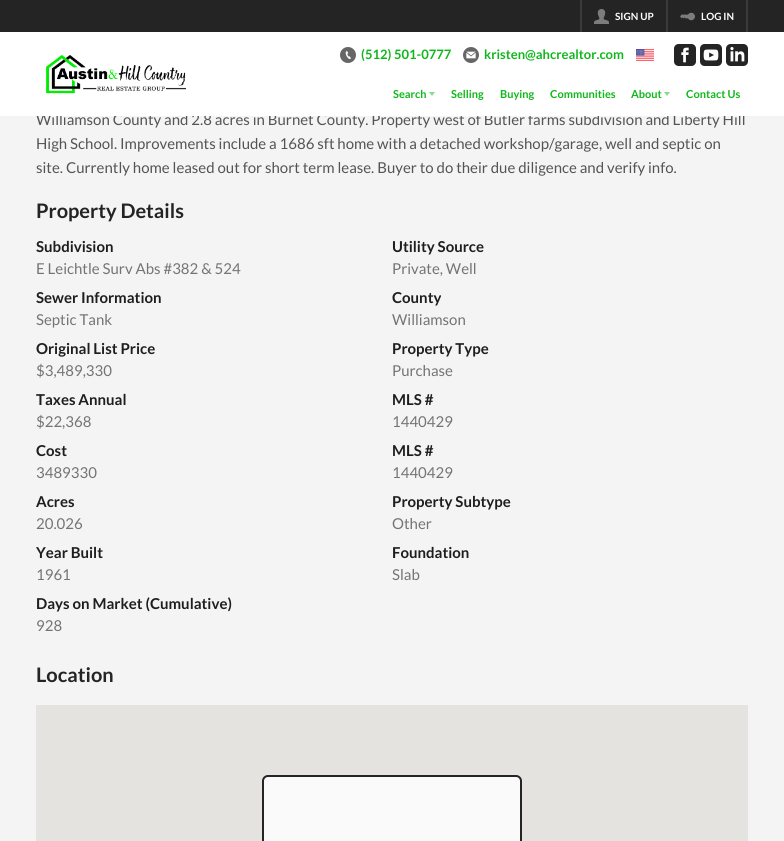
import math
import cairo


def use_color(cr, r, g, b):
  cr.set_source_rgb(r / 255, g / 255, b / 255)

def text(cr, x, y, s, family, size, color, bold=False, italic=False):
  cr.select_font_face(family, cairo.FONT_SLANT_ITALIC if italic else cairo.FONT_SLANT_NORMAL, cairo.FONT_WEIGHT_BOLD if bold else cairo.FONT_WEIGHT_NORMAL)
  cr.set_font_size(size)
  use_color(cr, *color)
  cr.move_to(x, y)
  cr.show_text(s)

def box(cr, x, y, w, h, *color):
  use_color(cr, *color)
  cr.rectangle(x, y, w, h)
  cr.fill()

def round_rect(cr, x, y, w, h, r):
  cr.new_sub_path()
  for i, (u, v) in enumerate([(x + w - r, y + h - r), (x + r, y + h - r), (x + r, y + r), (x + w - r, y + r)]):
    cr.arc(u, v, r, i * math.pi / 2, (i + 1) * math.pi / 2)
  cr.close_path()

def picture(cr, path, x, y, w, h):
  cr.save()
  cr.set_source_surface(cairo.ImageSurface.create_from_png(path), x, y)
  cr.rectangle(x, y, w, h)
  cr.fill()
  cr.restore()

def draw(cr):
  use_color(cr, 244, 244, 244)
  cr.paint()
  box(cr, 0, 0, 784, 32, 36, 36, 36)
  box(cr, 746, 0, 2, 32, 58, 58, 58)
  box(cr, 580, 0, 2, 32, 58, 58, 58)
  picture(cr, "img_01.png", 594, 9, 15, 15)
  box(cr, 666, 0, 2, 32, 58, 58, 58)
  picture(cr, "img_02.png", 680, 12, 15, 9)
  box(cr, 36, 705, 712, 136, 229, 227, 223)
  use_color(cr, 250, 250, 250)
  round_rect(cr, 263, 776, 258, 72, 5)
  cr.fill_preserve()
  use_color(cr, 36, 36, 36)
  cr.stroke()
  text(cr, 615, 20, "SIGN UP", "Lato", 10, (255, 255, 255), bold=True)
  text(cr, 701, 20, "LOG IN", "Lato", 10, (255, 255, 255), bold=True)
  text(cr, 36, 125, "Williamson County and 2.8 acres in Burnet County. Property west of Butler farms subdivision and Liberty Hill", "Lato", 15, (84, 84, 84))
  box(cr, 0, 32, 784, 84, 255, 255, 255)
  text(cr, 686, 98, "Contact Us", "Lato", 11, (15, 184, 26), bold=True)
  use_color(cr, 135, 220, 141)
  cr.new_path()
  cr.move_to(664, 92)
  cr.line_to(670, 92)
  cr.line_to(667, 96)
  cr.close_path()
  cr.fill()
  text(cr, 631, 98, "About", "Lato", 11, (15, 184, 26), bold=True)
  text(cr, 550, 98, "Communities", "Lato", 11, (15, 184, 26), bold=True)
  text(cr, 500, 98, "Buying", "Lato", 11, (15, 184, 26), bold=True)
  text(cr, 451, 98, "Selling", "Lato", 11, (15, 184, 26), bold=True)
  use_color(cr, 135, 220, 141)
  cr.new_path()
  cr.move_to(429, 92)
  cr.line_to(435, 92)
  cr.line_to(432, 96)
  cr.close_path()
  cr.fill()
  text(cr, 393, 98, "Search", "Lato", 11, (15, 184, 26), bold=True)
  picture(cr, "img_09.png", 726, 44, 22, 22)
  picture(cr, "img_08.png", 700, 44, 22, 22)
  picture(cr, "img_07.png", 674, 44, 22, 22)
  picture(cr, "img_06.png", 636, 49, 18, 12)
  picture(cr, "img_05.png", 463, 47, 16, 16)
  picture(cr, "img_04.png", 340, 47, 16, 16)
  text(cr, 484, 59, "kristen@ahcrealtor.com", "Lato", 13, (15, 184, 26), bold=True)
  text(cr, 361, 59, "(512) 501-0777", "Lato", 13, (15, 184, 26), bold=True)
  picture(cr, "img_03.png", 46, 55, 140, 39)
  text(cr, 36, 149, "High School. Improvements include a 1686 sft home with a detached workshop/garage, well and septic on", "Lato", 15, (84, 84, 84))
  text(cr, 36, 173, "site. Currently home leased out for short term lease. Buyer to do their due diligence and verify info.", "Lato", 15, (84, 84, 84))
  text(cr, 36, 218, "Property Details", "Lato", 20, (36, 36, 36), bold=True)
  text(cr, 36, 252, "Subdivision", "Lato", 15, (30, 30, 30), bold=True)
  text(cr, 36, 274, "E Leichtle Surv Abs #382 & 524", "Lato", 15, (116, 116, 116))
  text(cr, 392, 252, "Utility Source", "Lato", 15, (30, 30, 30), bold=True)
  text(cr, 392, 274, "Private, Well", "Lato", 15, (116, 116, 116))
  text(cr, 36, 303, "Sewer Information", "Lato", 15, (30, 30, 30), bold=True)
  text(cr, 36, 325, "Septic Tank", "Lato", 15, (116, 116, 116))
  text(cr, 392, 303, "County", "Lato", 15, (30, 30, 30), bold=True)
  text(cr, 392, 325, "Williamson", "Lato", 15, (116, 116, 116))
  text(cr, 36, 354, "Original List Price", "Lato", 15, (30, 30, 30), bold=True)
  text(cr, 36, 376, "$3,489,330", "Lato", 15, (116, 116, 116))
  text(cr, 392, 354, "Property Type", "Lato", 15, (30, 30, 30), bold=True)
  text(cr, 392, 376, "Purchase", "Lato", 15, (116, 116, 116))
  text(cr, 36, 405, "Taxes Annual", "Lato", 15, (30, 30, 30), bold=True)
  text(cr, 36, 427, "$22,368", "Lato", 15, (116, 116, 116))
  text(cr, 392, 405, "MLS #", "Lato", 15, (30, 30, 30), bold=True)
  text(cr, 392, 427, "1440429", "Lato", 15, (116, 116, 116))
  text(cr, 36, 456, "Cost", "Lato", 15, (30, 30, 30), bold=True)
  text(cr, 36, 478, "3489330", "Lato", 15, (116, 116, 116))
  text(cr, 392, 456, "MLS #", "Lato", 15, (30, 30, 30), bold=True)
  text(cr, 392, 478, "1440429", "Lato", 15, (116, 116, 116))
  text(cr, 36, 507, "Acres", "Lato", 15, (30, 30, 30), bold=True)
  text(cr, 36, 529, "20.026", "Lato", 15, (116, 116, 116))
  text(cr, 392, 507, "Property Subtype", "Lato", 15, (30, 30, 30), bold=True)
  text(cr, 392, 529, "Other", "Lato", 15, (116, 116, 116))
  text(cr, 36, 558, "Year Built", "Lato", 15, (30, 30, 30), bold=True)
  text(cr, 36, 580, "1961", "Lato", 15, (116, 116, 116))
  text(cr, 392, 558, "Foundation", "Lato", 15, (30, 30, 30), bold=True)
  text(cr, 392, 580, "Slab", "Lato", 15, (116, 116, 116))
  text(cr, 36, 609, "Days on Market (Cumulative)", "Lato", 15, (30, 30, 30), bold=True)
  text(cr, 36, 631, "928", "Lato", 15, (116, 116, 116))
  text(cr, 36, 682, "Location", "Lato", 20, (36, 36, 36), bold=True)


surface = cairo.ImageSurface(cairo.FORMAT_RGB24, 784, 841)
cr = cairo.Context(surface)
options = cairo.FontOptions()
options.set_hint_metrics(cairo.HINT_METRICS_OFF)
options.set_hint_style(cairo.HINT_STYLE_NONE)
cr.set_font_options(options)
cr.set_miter_limit(4)
draw(cr)
surface.write_to_png("out.png")
